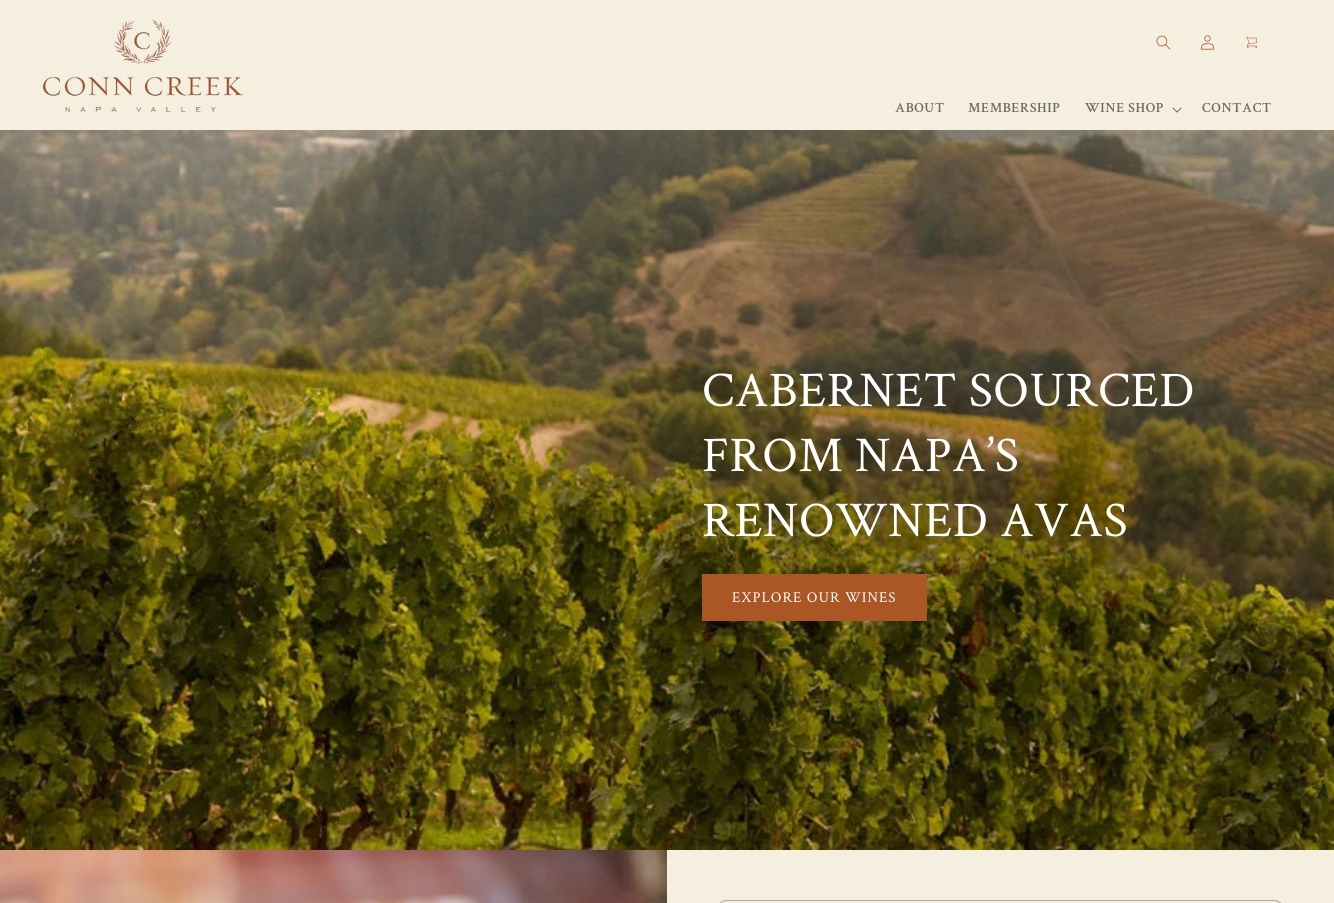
import math
import cairo


def use_color(cr, r, g, b):
  cr.set_source_rgb(r / 255, g / 255, b / 255)

def spaced_text(cr, x, y, s, letter, word):
  cr.move_to(x, y)
  for ch in s:
    cr.show_text(ch)
    cr.rel_move_to(letter + word * (ch == ' '), 0)

def box(cr, x, y, w, h, *color):
  use_color(cr, *color)
  cr.rectangle(x, y, w, h)
  cr.fill()

def round_rect(cr, x, y, w, h, r):
  cr.new_sub_path()
  for i, (u, v) in enumerate([(x + w - r, y + h - r), (x + r, y + h - r), (x + r, y + r), (x + w - r, y + r)]):
    cr.arc(u, v, r, i * math.pi / 2, (i + 1) * math.pi / 2)
  cr.close_path()

def picture(cr, path, x, y, w, h):
  cr.save()
  cr.set_source_surface(cairo.ImageSurface.create_from_png(path), x, y)
  cr.rectangle(x, y, w, h)
  cr.fill()
  cr.restore()

def draw(cr):
  use_color(cr, 245, 239, 224)
  cr.paint()
  picture(cr, "img_01.png", 1156, 35, 15, 15)
  picture(cr, "img_02.png", 1200, 35, 15, 15)
  picture(cr, "img_03.png", 1245, 36, 13, 12)
  picture(cr, "img_04.png", 43, 20, 200, 92)
  picture(cr, "img_05.png", 1172, 107, 10, 6)
  picture(cr, "img_06.png", 0, 130, 1334, 720)
  box(cr, 702, 574, 225, 47, 170, 86, 37)
  picture(cr, "img_07.png", 0, 850, 667, 53)
  round_rect(cr, 717.5, 900.5, 566, 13, 9.5)
  use_color(cr, 174, 167, 164)
  cr.set_line_width(1)
  cr.stroke()
  cr.select_font_face("Crimson Text SemiBold")
  cr.set_font_size(14)
  use_color(cr, 112, 106, 102)
  spaced_text(cr, 895, 112, "ABOUT", 0.6, 0)
  spaced_text(cr, 968, 112, "MEMBERSHIP", 0.6, 0)
  spaced_text(cr, 1085, 112, "WINE SHOP", 0.6, 0)
  spaced_text(cr, 1202, 112, "CONTACT", 0.6, 0)
  cr.select_font_face("Crimson Text")
  cr.set_font_size(50)
  use_color(cr, 255, 255, 255)
  spaced_text(cr, 702, 406, "CABERNET SOURCED", 0.6, 0)
  spaced_text(cr, 702, 471, "FROM NAPA’S", 0.6, 0)
  spaced_text(cr, 702, 536, "RENOWNED AVAS", 0.6, 0)
  cr.set_font_size(15)
  spaced_text(cr, 732, 602, "EXPLORE OUR WINES", 1, 0)


surface = cairo.ImageSurface(cairo.FORMAT_RGB24, 1334, 903)
cr = cairo.Context(surface)
options = cairo.FontOptions()
options.set_hint_metrics(cairo.HINT_METRICS_OFF)
options.set_hint_style(cairo.HINT_STYLE_NONE)
cr.set_font_options(options)
cr.set_miter_limit(4)
draw(cr)
surface.write_to_png("out.png")
